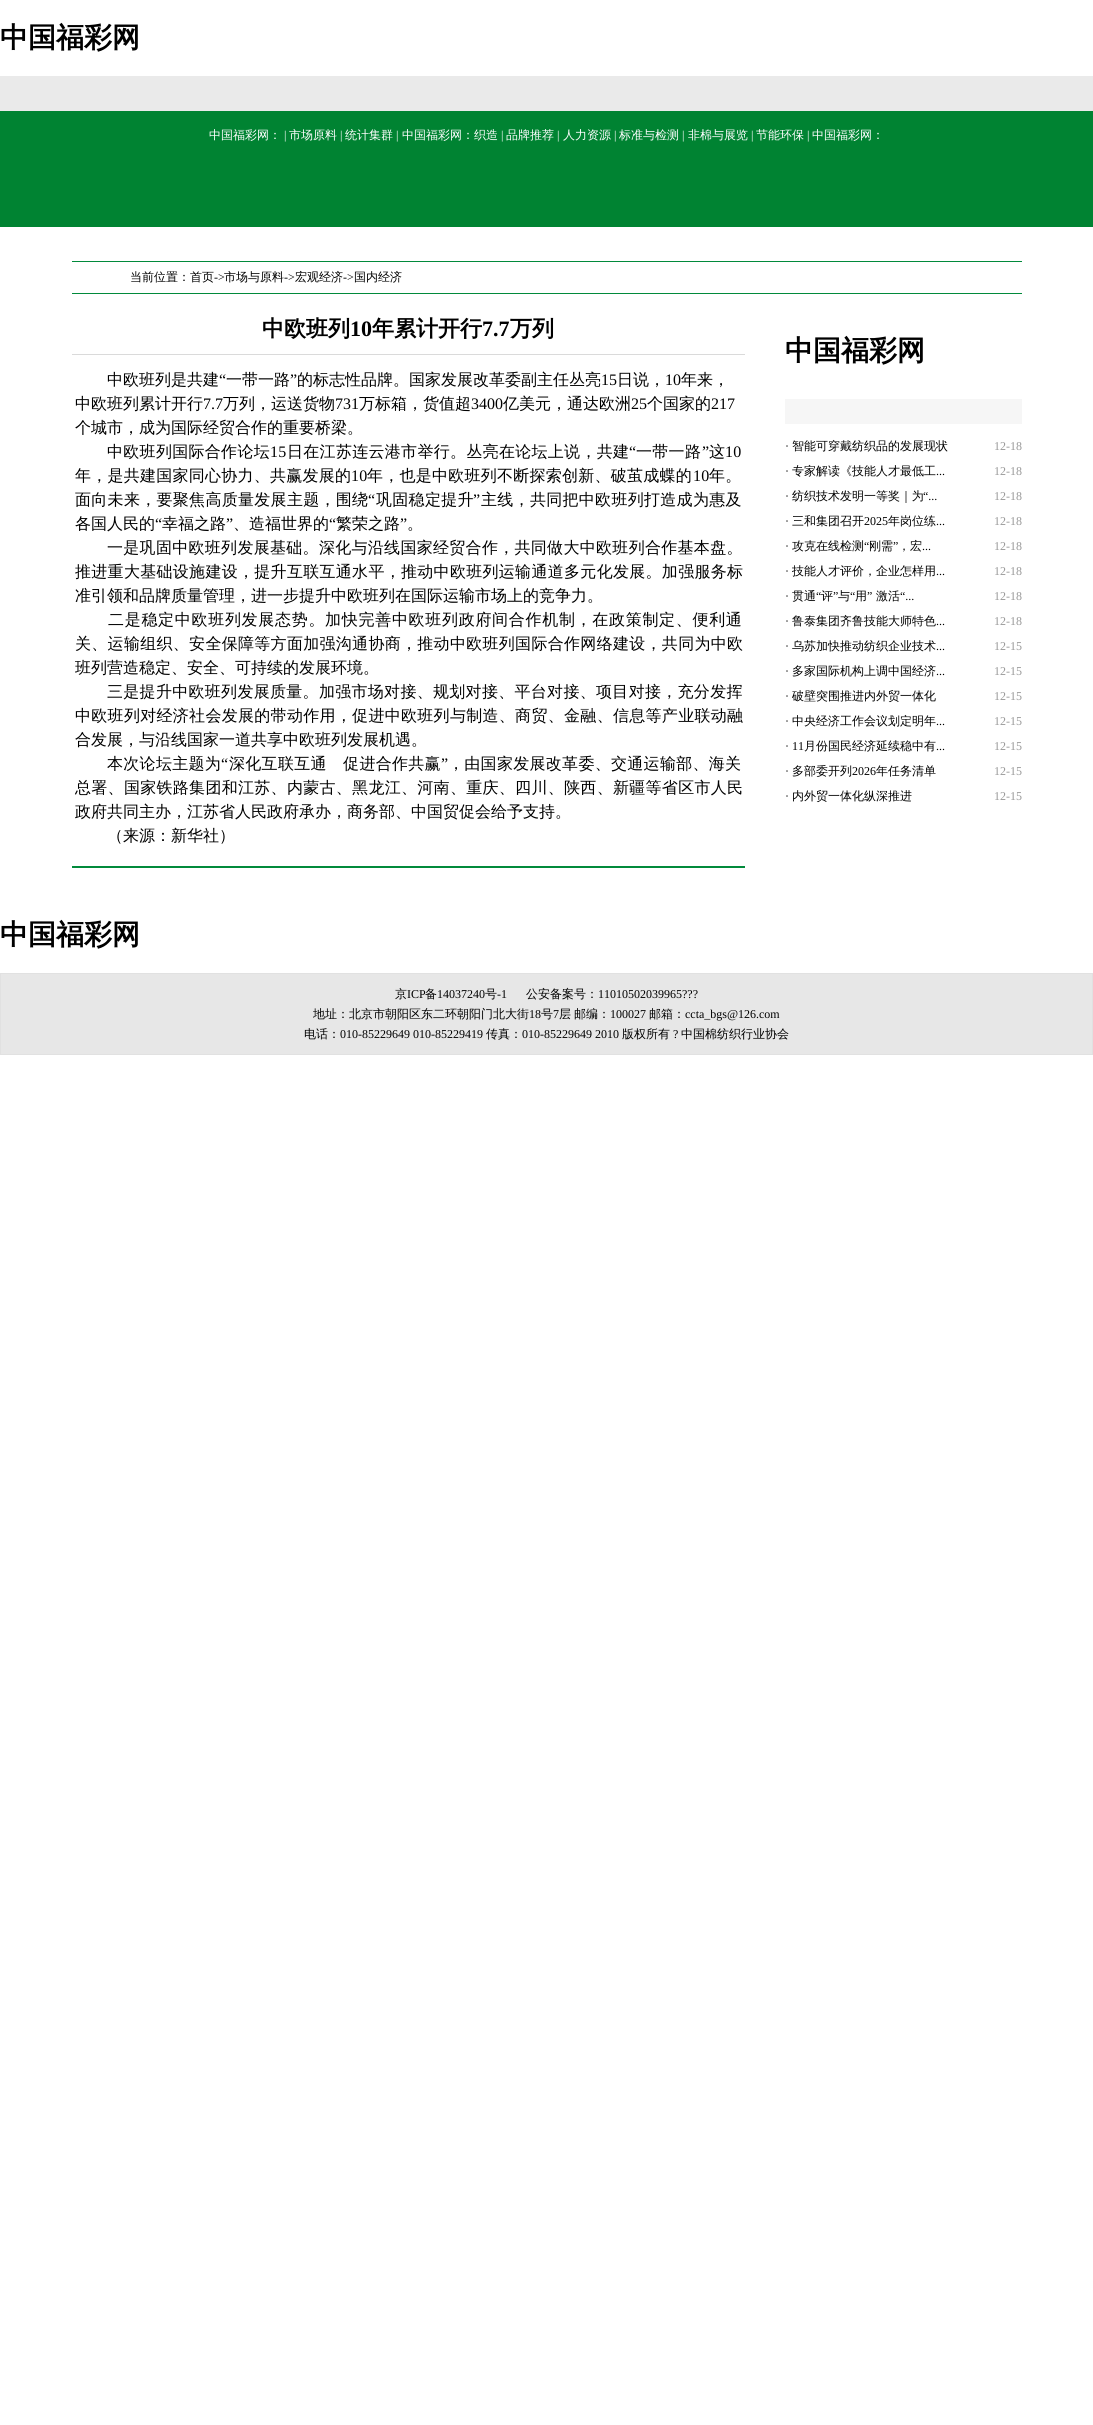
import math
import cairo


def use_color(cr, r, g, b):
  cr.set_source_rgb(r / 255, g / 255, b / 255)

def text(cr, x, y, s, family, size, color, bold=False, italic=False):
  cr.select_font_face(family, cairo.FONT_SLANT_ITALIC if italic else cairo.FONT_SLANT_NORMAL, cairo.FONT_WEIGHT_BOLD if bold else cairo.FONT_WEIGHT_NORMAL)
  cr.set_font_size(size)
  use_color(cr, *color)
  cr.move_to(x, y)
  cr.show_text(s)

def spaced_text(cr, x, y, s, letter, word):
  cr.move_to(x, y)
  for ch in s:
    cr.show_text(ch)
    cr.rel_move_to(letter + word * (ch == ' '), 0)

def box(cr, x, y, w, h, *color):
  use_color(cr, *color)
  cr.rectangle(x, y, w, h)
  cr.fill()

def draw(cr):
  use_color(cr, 255, 255, 255)
  cr.paint()
  box(cr, 0, 76, 1093, 35, 234, 234, 234)
  box(cr, 0, 111, 1093, 116, 0, 131, 50)
  box(cr, 72, 261, 950, 1, 1, 138, 59)
  box(cr, 72, 293, 950, 1, 1, 138, 59)
  box(cr, 72, 354, 673, 1, 218, 218, 218)
  box(cr, 72, 866, 673, 2, 1, 138, 59)
  box(cr, 785, 399, 237, 25, 246, 246, 246)
  cr.rectangle(0.5, 973.5, 1092, 81)
  use_color(cr, 225, 225, 225)
  cr.set_line_width(1)
  cr.stroke()
  box(cr, 1, 974, 1091, 80, 231, 231, 231)
  text(cr, 0, 47, "中国福彩网", "WenQuanYi Zen Hei", 28, (0, 0, 0), bold=True)
  text(cr, 209, 139, "中国福彩网：", "WenQuanYi Zen Hei Medium", 12, (255, 255, 255))
  text(cr, 284, 139, "|", "Liberation Serif", 12, (255, 255, 255))
  text(cr, 289, 139, "市场原料", "WenQuanYi Zen Hei Medium", 12, (255, 255, 255))
  text(cr, 340, 139, "|", "Liberation Serif", 12, (255, 255, 255))
  text(cr, 345, 139, "统计集群", "WenQuanYi Zen Hei Medium", 12, (255, 255, 255))
  text(cr, 396, 139, "|", "Liberation Serif", 12, (255, 255, 255))
  text(cr, 402, 139, "中国福彩网：织造", "WenQuanYi Zen Hei Medium", 12, (255, 255, 255))
  text(cr, 501, 139, "|", "Liberation Serif", 12, (255, 255, 255))
  text(cr, 506, 139, "品牌推荐", "WenQuanYi Zen Hei Medium", 12, (255, 255, 255))
  text(cr, 557, 139, "|", "Liberation Serif", 12, (255, 255, 255))
  text(cr, 563, 139, "人力资源", "WenQuanYi Zen Hei Medium", 12, (255, 255, 255))
  text(cr, 614, 139, "|", "Liberation Serif", 12, (255, 255, 255))
  text(cr, 619, 139, "标准与检测", "WenQuanYi Zen Hei Medium", 12, (255, 255, 255))
  text(cr, 682, 139, "|", "Liberation Serif", 12, (255, 255, 255))
  text(cr, 688, 139, "非棉与展览", "WenQuanYi Zen Hei Medium", 12, (255, 255, 255))
  text(cr, 751, 139, "|", "Liberation Serif", 12, (255, 255, 255))
  text(cr, 756, 139, "节能环保", "WenQuanYi Zen Hei Medium", 12, (255, 255, 255))
  text(cr, 807, 139, "|", "Liberation Serif", 12, (255, 255, 255))
  text(cr, 812, 139, "中国福彩网：", "WenQuanYi Zen Hei Medium", 12, (255, 255, 255))
  text(cr, 130, 281, "当前位置：首页", "WenQuanYi Zen Hei Medium", 12, (0, 0, 0))
  text(cr, 214, 281, "->", "Liberation Serif", 12, (0, 0, 0))
  text(cr, 224, 281, "市场与原料", "WenQuanYi Zen Hei Medium", 12, (0, 0, 0))
  text(cr, 284, 281, "->", "Liberation Serif", 12, (0, 0, 0))
  text(cr, 295, 281, "宏观经济", "WenQuanYi Zen Hei Medium", 12, (0, 0, 0))
  text(cr, 343, 281, "->", "Liberation Serif", 12, (0, 0, 0))
  text(cr, 354, 281, "国内经济", "WenQuanYi Zen Hei Medium", 12, (0, 0, 0))
  text(cr, 262, 336, "中欧班列", "WenQuanYi Zen Hei", 22, (0, 0, 0), bold=True)
  text(cr, 350, 336, "10", "Liberation Serif", 22, (0, 0, 0), bold=True)
  text(cr, 372, 336, "年累计开行", "WenQuanYi Zen Hei", 22, (0, 0, 0), bold=True)
  text(cr, 482, 336, "7.7", "Liberation Serif", 22, (0, 0, 0), bold=True)
  text(cr, 510, 336, "万列", "WenQuanYi Zen Hei", 22, (0, 0, 0), bold=True)
  text(cr, 107, 385, "中欧班列是共建", "WenQuanYi Zen Hei Medium", 16, (0, 0, 0))
  text(cr, 219, 385, "“", "Liberation Serif", 16, (0, 0, 0))
  text(cr, 226, 385, "一带一路", "WenQuanYi Zen Hei Medium", 16, (0, 0, 0))
  text(cr, 290, 385, "”", "Liberation Serif", 16, (0, 0, 0))
  text(cr, 297, 385, "的标志性品牌。国家发展改革委副主任丛亮", "WenQuanYi Zen Hei Medium", 16, (0, 0, 0))
  text(cr, 601, 385, "15", "Liberation Serif", 16, (0, 0, 0))
  text(cr, 617, 385, "日说，", "WenQuanYi Zen Hei Medium", 16, (0, 0, 0))
  text(cr, 665, 385, "10", "Liberation Serif", 16, (0, 0, 0))
  text(cr, 681, 385, "年来，", "WenQuanYi Zen Hei Medium", 16, (0, 0, 0))
  text(cr, 75, 409, "中欧班列累计开行", "WenQuanYi Zen Hei Medium", 16, (0, 0, 0))
  text(cr, 203, 409, "7.7", "Liberation Serif", 16, (0, 0, 0))
  text(cr, 223, 409, "万列，运送货物", "WenQuanYi Zen Hei Medium", 16, (0, 0, 0))
  text(cr, 335, 409, "731", "Liberation Serif", 16, (0, 0, 0))
  text(cr, 359, 409, "万标箱，货值超", "WenQuanYi Zen Hei Medium", 16, (0, 0, 0))
  text(cr, 471, 409, "3400", "Liberation Serif", 16, (0, 0, 0))
  text(cr, 503, 409, "亿美元，通达欧洲", "WenQuanYi Zen Hei Medium", 16, (0, 0, 0))
  text(cr, 631, 409, "25", "Liberation Serif", 16, (0, 0, 0))
  text(cr, 647, 409, "个国家的", "WenQuanYi Zen Hei Medium", 16, (0, 0, 0))
  text(cr, 711, 409, "217", "Liberation Serif", 16, (0, 0, 0))
  text(cr, 75, 433, "个城市，成为国际经贸合作的重要桥梁。", "WenQuanYi Zen Hei Medium", 16, (0, 0, 0))
  spaced_text(cr, 107, 457, "中欧班列国际合作论坛", 0.3, 0)
  cr.select_font_face("Liberation Serif")
  spaced_text(cr, 270, 457, "15", 0.3, 0)
  cr.select_font_face("WenQuanYi Zen Hei Medium")
  spaced_text(cr, 287, 457, "日在江苏连云港市举行。丛亮在论坛上说，共建", 0.3, 0)
  cr.select_font_face("Liberation Serif")
  spaced_text(cr, 629, 457, "“", 0.3, 0)
  cr.select_font_face("WenQuanYi Zen Hei Medium")
  spaced_text(cr, 636, 457, "一带一路", 0.3, 0)
  cr.select_font_face("Liberation Serif")
  spaced_text(cr, 702, 457, "”", 0.3, 0)
  cr.select_font_face("WenQuanYi Zen Hei Medium")
  spaced_text(cr, 709, 457, "这", 0.3, 0)
  cr.select_font_face("Liberation Serif")
  spaced_text(cr, 725, 457, "10", 0.3, 0)
  cr.select_font_face("WenQuanYi Zen Hei Medium")
  spaced_text(cr, 75, 481, "年，是共建国家同心协力、共赢发展的", 0.25, 0)
  cr.select_font_face("Liberation Serif")
  spaced_text(cr, 351, 481, "10", 0.25, 0)
  cr.select_font_face("WenQuanYi Zen Hei Medium")
  spaced_text(cr, 367, 481, "年，也是中欧班列不断探索创新、破茧成蝶的", 0.25, 0)
  cr.select_font_face("Liberation Serif")
  spaced_text(cr, 693, 481, "10", 0.25, 0)
  cr.select_font_face("WenQuanYi Zen Hei Medium")
  spaced_text(cr, 709, 481, "年。", 0.25, 0)
  spaced_text(cr, 75, 505, "面向未来，要聚焦高质量发展主题，围绕", 0.3, 0)
  cr.select_font_face("Liberation Serif")
  spaced_text(cr, 368, 505, "“", 0.3, 0)
  cr.select_font_face("WenQuanYi Zen Hei Medium")
  spaced_text(cr, 376, 505, "巩固稳定提升", 0.3, 0)
  cr.select_font_face("Liberation Serif")
  spaced_text(cr, 473, 505, "”", 0.3, 0)
  cr.select_font_face("WenQuanYi Zen Hei Medium")
  spaced_text(cr, 481, 505, "主线，共同把中欧班列打造成为惠及", 0.3, 0)
  text(cr, 75, 529, "各国人民的", "WenQuanYi Zen Hei Medium", 16, (0, 0, 0))
  text(cr, 155, 529, "“", "Liberation Serif", 16, (0, 0, 0))
  text(cr, 162, 529, "幸福之路", "WenQuanYi Zen Hei Medium", 16, (0, 0, 0))
  text(cr, 226, 529, "”", "Liberation Serif", 16, (0, 0, 0))
  text(cr, 233, 529, "、造福世界的", "WenQuanYi Zen Hei Medium", 16, (0, 0, 0))
  text(cr, 329, 529, "“", "Liberation Serif", 16, (0, 0, 0))
  text(cr, 336, 529, "繁荣之路", "WenQuanYi Zen Hei Medium", 16, (0, 0, 0))
  text(cr, 400, 529, "”", "Liberation Serif", 16, (0, 0, 0))
  text(cr, 407, 529, "。", "WenQuanYi Zen Hei Medium", 16, (0, 0, 0))
  spaced_text(cr, 107, 553, "一是巩固中欧班列发展基础。深化与沿线国家经贸合作，共同做大中欧班列合作基本盘。", 0.3, 0)
  spaced_text(cr, 75, 577, "推进重大基础设施建设，提升互联互通水平，推动中欧班列运输通道多元化发展。加强服务标", 0.3, 0)
  text(cr, 75, 601, "准引领和品牌质量管理，进一步提升中欧班列在国际运输市场上的竞争力。", "WenQuanYi Zen Hei Medium", 16, (0, 0, 0))
  spaced_text(cr, 108, 625, "二是稳定中欧班列发展态势。加快完善中欧班列政府间合作机制，在政策制定、便利通", 0.7, 0)
  spaced_text(cr, 75, 649, "关、运输组织、安全保障等方面加强沟通协商，推动中欧班列国际合作网络建设，共同为中欧", 0.3, 0)
  text(cr, 75, 673, "班列营造稳定、安全、可持续的发展环境。", "WenQuanYi Zen Hei Medium", 16, (0, 0, 0))
  spaced_text(cr, 107, 697, "三是提升中欧班列发展质量。加强市场对接、规划对接、平台对接、项目对接，充分发挥", 0.3, 0)
  spaced_text(cr, 75, 721, "中欧班列对经济社会发展的带动作用，促进中欧班列与制造、商贸、金融、信息等产业联动融", 0.3, 0)
  text(cr, 75, 745, "合发展，与沿线国家一道共享中欧班列发展机遇。", "WenQuanYi Zen Hei Medium", 16, (0, 0, 0))
  spaced_text(cr, 107, 769, "本次论坛主题为", 0.3, 0)
  cr.select_font_face("Liberation Serif")
  spaced_text(cr, 221, 769, "“", 0.3, 0)
  cr.select_font_face("WenQuanYi Zen Hei Medium")
  spaced_text(cr, 229, 769, "深化互联互通　促进合作共赢", 0.3, 0)
  cr.select_font_face("Liberation Serif")
  spaced_text(cr, 441, 769, "”", 0.3, 0)
  cr.select_font_face("WenQuanYi Zen Hei Medium")
  spaced_text(cr, 448, 769, "，由国家发展改革委、交通运输部、海关", 0.3, 0)
  spaced_text(cr, 75, 793, "总署、国家铁路集团和江苏、内蒙古、黑龙江、河南、重庆、四川、陕西、新疆等省区市人民", 0.3, 0)
  text(cr, 75, 817, "政府共同主办，江苏省人民政府承办，商务部、中国贸促会给予支持。", "WenQuanYi Zen Hei Medium", 16, (0, 0, 0))
  text(cr, 107, 841, "（来源：新华社）", "WenQuanYi Zen Hei Medium", 16, (0, 0, 0))
  text(cr, 785, 360, "中国福彩网", "WenQuanYi Zen Hei", 28, (0, 0, 0), bold=True)
  text(cr, 785, 450, "·", "Liberation Serif", 12, (0, 0, 0))
  text(cr, 792, 450, "智能可穿戴纺织品的发展现状", "WenQuanYi Zen Hei Medium", 12, (0, 0, 0))
  text(cr, 994, 450, "12-18", "Liberation Serif", 12, (153, 153, 153))
  text(cr, 785, 475, "·", "Liberation Serif", 12, (0, 0, 0))
  text(cr, 792, 475, "专家解读《技能人才最低工", "WenQuanYi Zen Hei Medium", 12, (0, 0, 0))
  text(cr, 994, 475, "12-18", "Liberation Serif", 12, (153, 153, 153))
  text(cr, 936, 475, "...", "Liberation Serif", 12, (0, 0, 0))
  text(cr, 785, 500, "·", "Liberation Serif", 12, (0, 0, 0))
  text(cr, 792, 500, "纺织技术发明一等奖｜为", "WenQuanYi Zen Hei Medium", 12, (0, 0, 0))
  text(cr, 923, 500, "“...", "Liberation Serif", 12, (0, 0, 0))
  text(cr, 994, 500, "12-18", "Liberation Serif", 12, (153, 153, 153))
  text(cr, 785, 525, "·", "Liberation Serif", 12, (0, 0, 0))
  text(cr, 792, 525, "三和集团召开", "WenQuanYi Zen Hei Medium", 12, (0, 0, 0))
  text(cr, 864, 525, "2025", "Liberation Serif", 12, (0, 0, 0))
  text(cr, 888, 525, "年岗位练", "WenQuanYi Zen Hei Medium", 12, (0, 0, 0))
  text(cr, 994, 525, "12-18", "Liberation Serif", 12, (153, 153, 153))
  text(cr, 936, 525, "...", "Liberation Serif", 12, (0, 0, 0))
  text(cr, 785, 550, "·", "Liberation Serif", 12, (0, 0, 0))
  text(cr, 792, 550, "攻克在线检测", "WenQuanYi Zen Hei Medium", 12, (0, 0, 0))
  text(cr, 864, 550, "“", "Liberation Serif", 12, (0, 0, 0))
  text(cr, 869, 550, "刚需", "WenQuanYi Zen Hei Medium", 12, (0, 0, 0))
  text(cr, 893, 550, "”", "Liberation Serif", 12, (0, 0, 0))
  text(cr, 898, 550, "，宏", "WenQuanYi Zen Hei Medium", 12, (0, 0, 0))
  text(cr, 994, 550, "12-18", "Liberation Serif", 12, (153, 153, 153))
  text(cr, 922, 550, "...", "Liberation Serif", 12, (0, 0, 0))
  text(cr, 785, 575, "·", "Liberation Serif", 12, (0, 0, 0))
  text(cr, 792, 575, "技能人才评价，企业怎样用", "WenQuanYi Zen Hei Medium", 12, (0, 0, 0))
  text(cr, 994, 575, "12-18", "Liberation Serif", 12, (153, 153, 153))
  text(cr, 936, 575, "...", "Liberation Serif", 12, (0, 0, 0))
  text(cr, 785, 600, "·", "Liberation Serif", 12, (0, 0, 0))
  text(cr, 792, 600, "贯通", "WenQuanYi Zen Hei Medium", 12, (0, 0, 0))
  text(cr, 816, 600, "“", "Liberation Serif", 12, (0, 0, 0))
  text(cr, 821, 600, "评", "WenQuanYi Zen Hei Medium", 12, (0, 0, 0))
  text(cr, 833, 600, "”", "Liberation Serif", 12, (0, 0, 0))
  text(cr, 838, 600, "与", "WenQuanYi Zen Hei Medium", 12, (0, 0, 0))
  text(cr, 850, 600, "“", "Liberation Serif", 12, (0, 0, 0))
  text(cr, 855, 600, "用", "WenQuanYi Zen Hei Medium", 12, (0, 0, 0))
  text(cr, 867, 600, "”", "Liberation Serif", 12, (0, 0, 0))
  text(cr, 876, 600, "激活", "WenQuanYi Zen Hei Medium", 12, (0, 0, 0))
  text(cr, 900, 600, "“...", "Liberation Serif", 12, (0, 0, 0))
  text(cr, 994, 600, "12-18", "Liberation Serif", 12, (153, 153, 153))
  text(cr, 785, 625, "·", "Liberation Serif", 12, (0, 0, 0))
  text(cr, 792, 625, "鲁泰集团齐鲁技能大师特色", "WenQuanYi Zen Hei Medium", 12, (0, 0, 0))
  text(cr, 994, 625, "12-18", "Liberation Serif", 12, (153, 153, 153))
  text(cr, 936, 625, "...", "Liberation Serif", 12, (0, 0, 0))
  text(cr, 785, 650, "·", "Liberation Serif", 12, (0, 0, 0))
  text(cr, 792, 650, "乌苏加快推动纺织企业技术", "WenQuanYi Zen Hei Medium", 12, (0, 0, 0))
  text(cr, 994, 650, "12-15", "Liberation Serif", 12, (153, 153, 153))
  text(cr, 936, 650, "...", "Liberation Serif", 12, (0, 0, 0))
  text(cr, 785, 675, "·", "Liberation Serif", 12, (0, 0, 0))
  text(cr, 792, 675, "多家国际机构上调中国经济", "WenQuanYi Zen Hei Medium", 12, (0, 0, 0))
  text(cr, 994, 675, "12-15", "Liberation Serif", 12, (153, 153, 153))
  text(cr, 936, 675, "...", "Liberation Serif", 12, (0, 0, 0))
  text(cr, 785, 700, "·", "Liberation Serif", 12, (0, 0, 0))
  text(cr, 792, 700, "破壁突围推进内外贸一体化", "WenQuanYi Zen Hei Medium", 12, (0, 0, 0))
  text(cr, 994, 700, "12-15", "Liberation Serif", 12, (153, 153, 153))
  text(cr, 785, 725, "·", "Liberation Serif", 12, (0, 0, 0))
  text(cr, 792, 725, "中央经济工作会议划定明年", "WenQuanYi Zen Hei Medium", 12, (0, 0, 0))
  text(cr, 994, 725, "12-15", "Liberation Serif", 12, (153, 153, 153))
  text(cr, 936, 725, "...", "Liberation Serif", 12, (0, 0, 0))
  text(cr, 785, 750, "· 11", "Liberation Serif", 12, (0, 0, 0))
  text(cr, 804, 750, "月份国民经济延续稳中有", "WenQuanYi Zen Hei Medium", 12, (0, 0, 0))
  text(cr, 936, 750, "...", "Liberation Serif", 12, (0, 0, 0))
  text(cr, 994, 750, "12-15", "Liberation Serif", 12, (153, 153, 153))
  text(cr, 785, 775, "·", "Liberation Serif", 12, (0, 0, 0))
  text(cr, 792, 775, "多部委开列", "WenQuanYi Zen Hei Medium", 12, (0, 0, 0))
  text(cr, 852, 775, "2026", "Liberation Serif", 12, (0, 0, 0))
  text(cr, 876, 775, "年任务清单", "WenQuanYi Zen Hei Medium", 12, (0, 0, 0))
  text(cr, 994, 775, "12-15", "Liberation Serif", 12, (153, 153, 153))
  text(cr, 785, 800, "·", "Liberation Serif", 12, (0, 0, 0))
  text(cr, 792, 800, "内外贸一体化纵深推进", "WenQuanYi Zen Hei Medium", 12, (0, 0, 0))
  text(cr, 994, 800, "12-15", "Liberation Serif", 12, (153, 153, 153))
  text(cr, 0, 944, "中国福彩网", "WenQuanYi Zen Hei", 28, (0, 0, 0), bold=True)
  text(cr, 395, 998, "京", "WenQuanYi Zen Hei Medium", 12, (0, 0, 0))
  text(cr, 407, 998, "ICP", "Liberation Serif", 12, (0, 0, 0))
  text(cr, 425, 998, "备", "WenQuanYi Zen Hei Medium", 12, (0, 0, 0))
  text(cr, 437, 998, "14037240", "Liberation Serif", 12, (0, 0, 0))
  text(cr, 485, 998, "号", "WenQuanYi Zen Hei Medium", 12, (0, 0, 0))
  text(cr, 497, 998, "-1", "Liberation Serif", 12, (0, 0, 0))
  text(cr, 526, 998, "公安备案号：", "WenQuanYi Zen Hei Medium", 12, (0, 0, 0))
  text(cr, 598, 998, "11010502039965???", "Liberation Serif", 12, (0, 0, 0))
  text(cr, 313, 1018, "地址：北京市朝阳区东二环朝阳门北大街", "WenQuanYi Zen Hei Medium", 12, (0, 0, 0))
  text(cr, 529, 1018, "18", "Liberation Serif", 12, (0, 0, 0))
  text(cr, 541, 1018, "号", "WenQuanYi Zen Hei Medium", 12, (0, 0, 0))
  text(cr, 553, 1018, "7", "Liberation Serif", 12, (0, 0, 0))
  text(cr, 559, 1018, "层", "WenQuanYi Zen Hei Medium", 12, (0, 0, 0))
  text(cr, 574, 1018, "邮编：", "WenQuanYi Zen Hei Medium", 12, (0, 0, 0))
  text(cr, 610, 1018, "100027", "Liberation Serif", 12, (0, 0, 0))
  text(cr, 649, 1018, "邮箱：", "WenQuanYi Zen Hei Medium", 12, (0, 0, 0))
  text(cr, 685, 1018, "ccta_bgs@126.com", "Liberation Serif", 12, (0, 0, 0))
  text(cr, 304, 1038, "电话：", "WenQuanYi Zen Hei Medium", 12, (0, 0, 0))
  text(cr, 340, 1038, "010-85229649 010-85229419", "Liberation Serif", 12, (0, 0, 0))
  text(cr, 486, 1038, "传真：", "WenQuanYi Zen Hei Medium", 12, (0, 0, 0))
  text(cr, 522, 1038, "010-85229649 2010", "Liberation Serif", 12, (0, 0, 0))
  text(cr, 622, 1038, "版权所有", "WenQuanYi Zen Hei Medium", 12, (0, 0, 0))
  text(cr, 673, 1038, "?", "Liberation Serif", 12, (0, 0, 0))
  text(cr, 681, 1038, "中国棉纺织行业协会", "WenQuanYi Zen Hei Medium", 12, (0, 0, 0))


surface = cairo.ImageSurface(cairo.FORMAT_RGB24, 1093, 2425)
cr = cairo.Context(surface)
options = cairo.FontOptions()
options.set_hint_metrics(cairo.HINT_METRICS_OFF)
options.set_hint_style(cairo.HINT_STYLE_NONE)
cr.set_font_options(options)
cr.set_miter_limit(4)
draw(cr)
surface.write_to_png("out.png")
